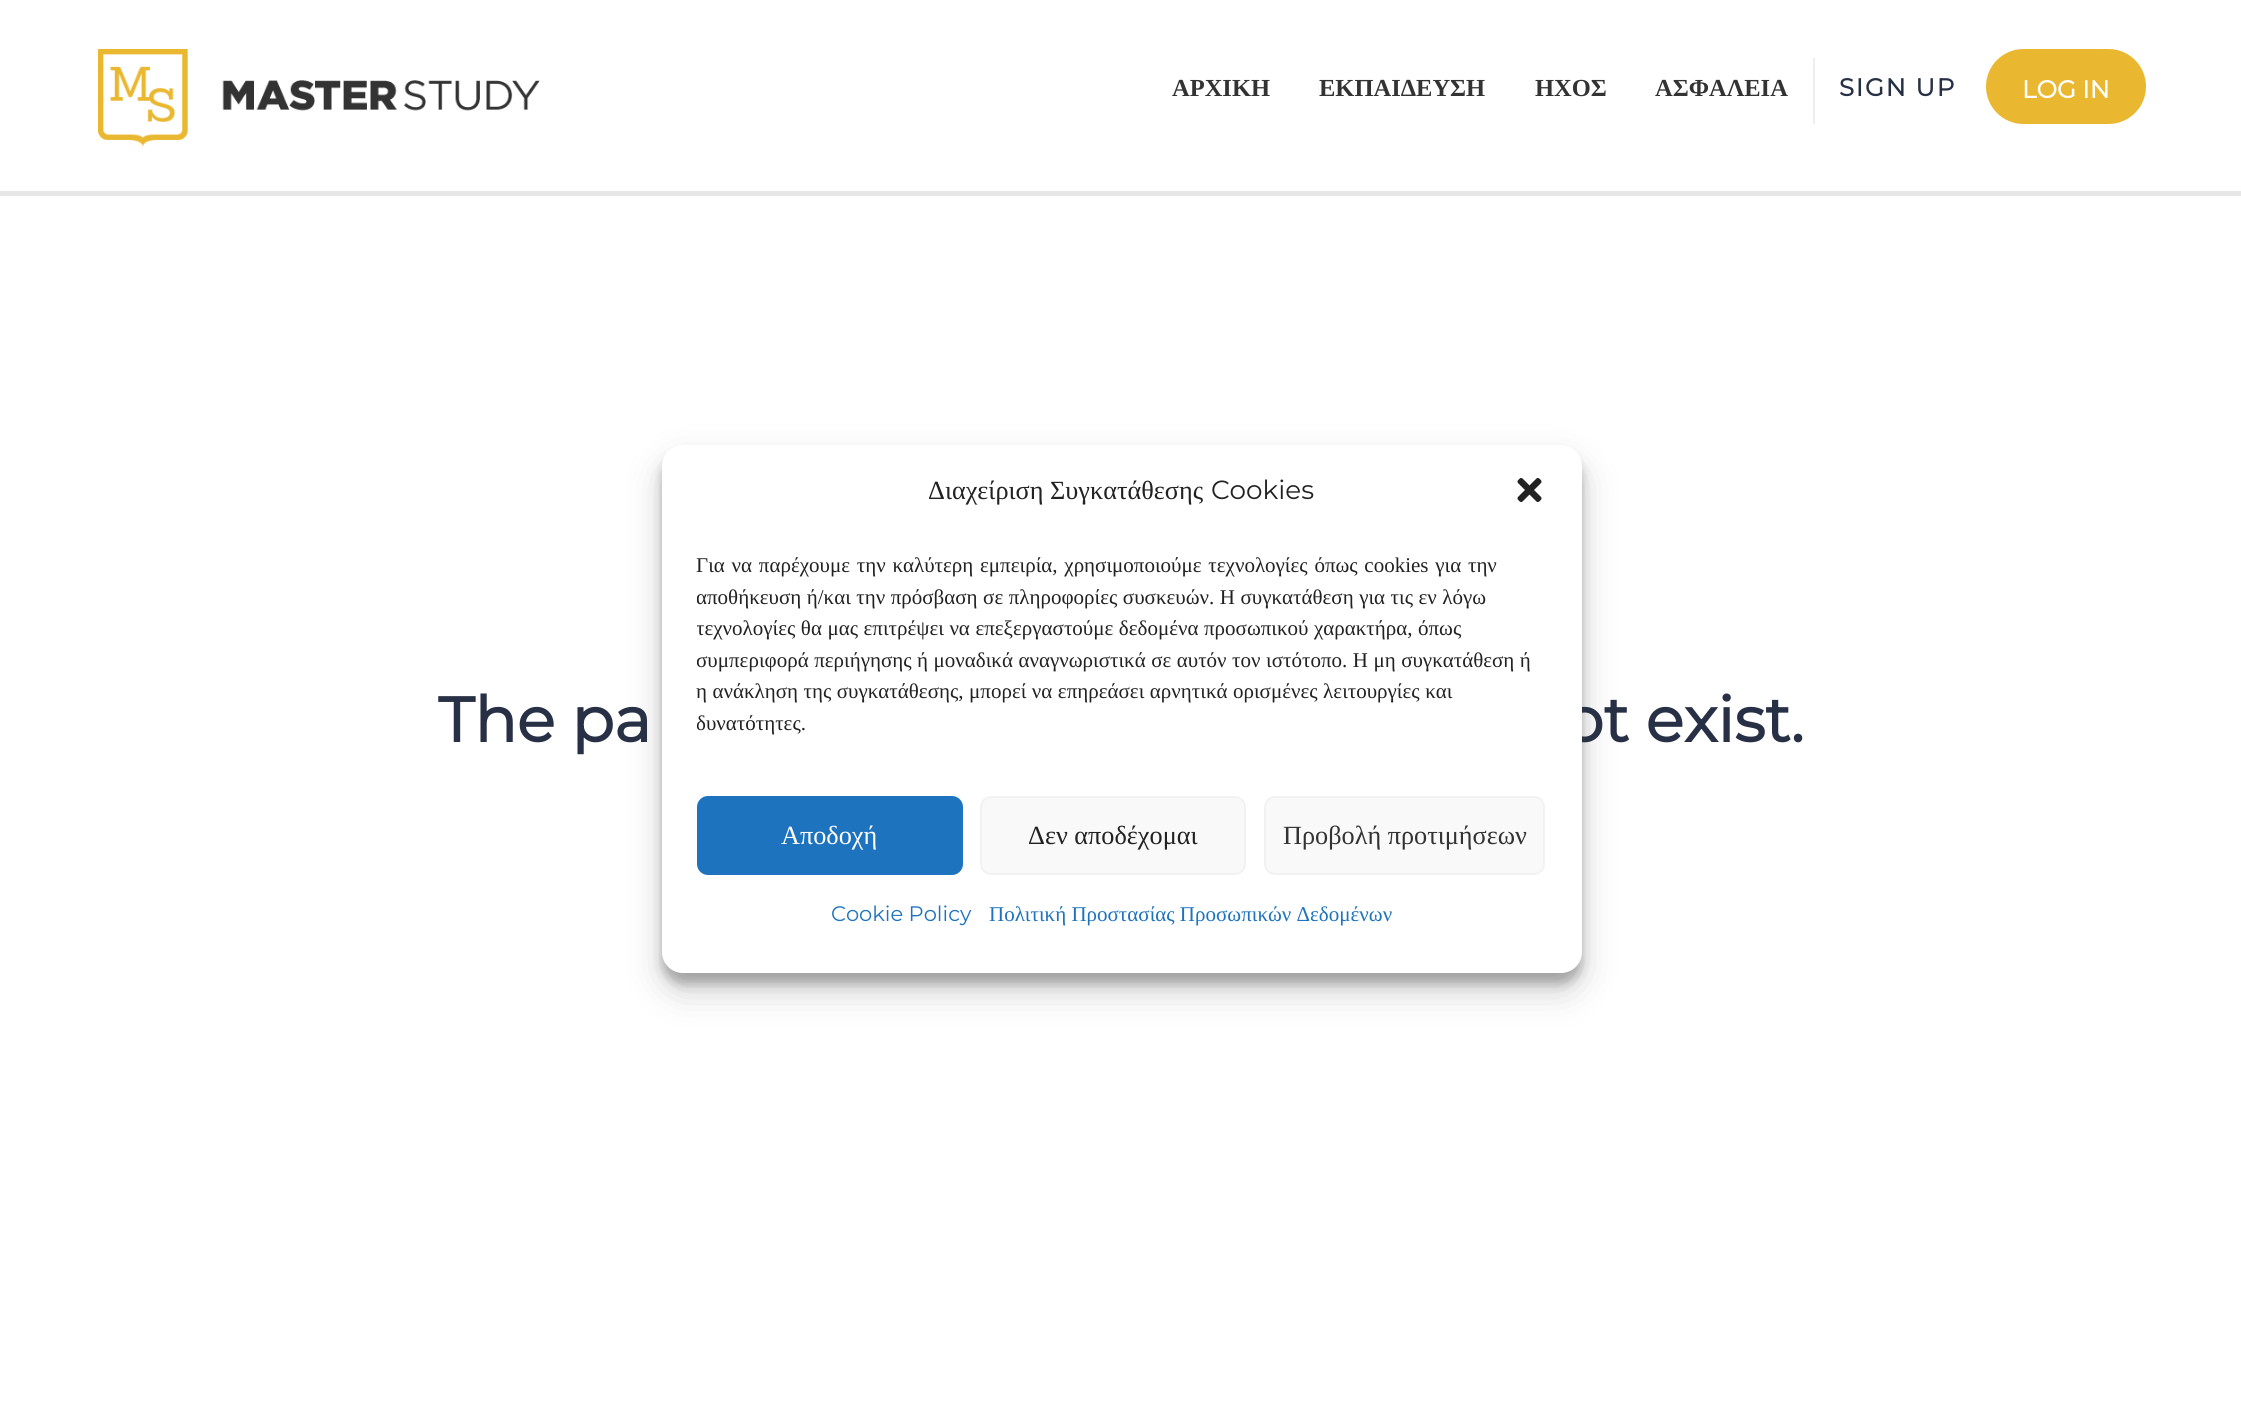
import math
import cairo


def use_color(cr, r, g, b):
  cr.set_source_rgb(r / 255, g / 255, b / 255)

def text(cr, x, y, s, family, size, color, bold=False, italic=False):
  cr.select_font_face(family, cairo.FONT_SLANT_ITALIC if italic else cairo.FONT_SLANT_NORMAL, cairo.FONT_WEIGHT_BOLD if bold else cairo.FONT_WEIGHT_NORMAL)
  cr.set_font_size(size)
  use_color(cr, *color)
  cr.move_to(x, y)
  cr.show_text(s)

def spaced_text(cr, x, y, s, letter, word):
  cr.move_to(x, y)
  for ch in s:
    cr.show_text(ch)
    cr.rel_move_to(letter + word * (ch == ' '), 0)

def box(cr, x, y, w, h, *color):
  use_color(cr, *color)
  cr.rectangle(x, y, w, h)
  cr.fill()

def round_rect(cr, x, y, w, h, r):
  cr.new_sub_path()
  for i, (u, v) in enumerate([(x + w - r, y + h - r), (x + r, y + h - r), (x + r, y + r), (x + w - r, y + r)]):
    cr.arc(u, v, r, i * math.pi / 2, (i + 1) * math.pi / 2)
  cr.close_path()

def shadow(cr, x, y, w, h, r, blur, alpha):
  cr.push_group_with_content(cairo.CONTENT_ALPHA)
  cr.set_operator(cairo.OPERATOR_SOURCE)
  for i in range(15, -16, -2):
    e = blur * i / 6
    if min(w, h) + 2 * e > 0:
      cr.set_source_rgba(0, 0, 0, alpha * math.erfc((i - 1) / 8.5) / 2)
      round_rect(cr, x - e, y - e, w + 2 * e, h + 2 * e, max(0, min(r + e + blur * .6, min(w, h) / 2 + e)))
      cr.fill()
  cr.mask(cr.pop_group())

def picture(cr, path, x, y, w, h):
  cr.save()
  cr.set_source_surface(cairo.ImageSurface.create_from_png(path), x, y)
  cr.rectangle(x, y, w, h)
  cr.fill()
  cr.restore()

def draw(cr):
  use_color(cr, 255, 255, 255)
  cr.paint()
  picture(cr, "img_01.png", 98, 49, 442, 98)
  box(cr, 1813, 58, 2, 66, 238, 238, 238)
  use_color(cr, 234, 184, 48)
  round_rect(cr, 1986, 49, 160, 75, 37.5)
  cr.fill()
  box(cr, 0, 191, 2241, 5, 230, 230, 230)
  use_color(cr, 0, 0, 0)
  shadow(cr, 662, 455, 920, 529, 21, 5, 0.23)
  shadow(cr, 662, 462, 920, 529, 21, 17.5, 0.19)
  text(cr, 1172, 96, "ΑΡΧΙΚΗ", "Liberation Serif", 24.5, (51, 51, 51), bold=True)
  text(cr, 1319, 96, "ΕΚΠΑΙΔΕΥΣΗ", "Liberation Serif", 24.5, (51, 51, 51), bold=True)
  text(cr, 1535, 96, "ΗΧΟΣ", "Liberation Serif", 24.5, (51, 51, 51), bold=True)
  text(cr, 1655, 96, "ΑΣΦΑΛΕΙΑ", "Liberation Serif", 24.5, (51, 51, 51), bold=True)
  cr.select_font_face("Montserrat", cairo.FONT_SLANT_NORMAL, cairo.FONT_WEIGHT_BOLD)
  use_color(cr, 39, 48, 68)
  spaced_text(cr, 1839, 96, "SIGN UP", 1.75, 0)
  text(cr, 2022, 98, "LOG IN", "Montserrat", 24.5, (255, 255, 255), bold=True)
  text(cr, 438, 742, "The pa", "Montserrat", 63, (39, 48, 68), bold=True)
  text(cr, 1564, 742, "ot exist.", "Montserrat", 63, (39, 48, 68), bold=True)
  use_color(cr, 255, 255, 255)
  round_rect(cr, 662, 445, 920, 528, 21)
  cr.fill()
  text(cr, 928, 499, "Διαχείριση Συγκατάθεσης", "Liberation Serif", 26.25, (34, 34, 34))
  text(cr, 1211, 499, "Cookies", "Montserrat Thin", 26.25, (34, 34, 34))
  picture(cr, "img_02.png", 1517, 478, 25, 24)
  cr.select_font_face("Liberation Serif")
  cr.set_font_size(21)
  spaced_text(cr, 696, 572, "Για να παρέχουμε την καλύτερη εμπειρία, χρησιμοποιούμε τεχνολογίες όπως cookies για την", 0, 1.5)
  cr.save()
  cr.rectangle(697, 550, 850, 197)
  cr.clip()
  spaced_text(cr, 696, 604, "αποθήκευση ή/και την πρόσβαση σε πληροφορίες συσκευών. Η συγκατάθεση για τις εν λόγω", 0, 0.25)
  spaced_text(cr, 696, 635, "τεχνολογίες θα μας επιτρέψει να επεξεργαστούμε δεδομένα προσωπικού χαρακτήρα, όπως", 0, 0.25)
  spaced_text(cr, 696, 667, "συμπεριφορά περιήγησης ή μοναδικά αναγνωριστικά σε αυτόν τον ιστότοπο. Η μη συγκατάθεση ή", 0, 0.25)
  cr.restore()
  spaced_text(cr, 696, 698, "η ανάκληση της συγκατάθεσης, μπορεί να επηρεάσει αρνητικά ορισμένες λειτουργίες και", 0, 0.25)
  cr.save()
  cr.rectangle(697, 550, 850, 197)
  cr.clip()
  text(cr, 696, 730, "δυνατότητες.", "Liberation Serif", 21, (34, 34, 34))
  cr.restore()
  use_color(cr, 30, 115, 190)
  round_rect(cr, 698, 797, 264, 77, 10)
  cr.fill_preserve()
  cr.stroke()
  text(cr, 781, 844, "Αποδοχή", "Liberation Serif", 26.25, (255, 255, 255))
  use_color(cr, 249, 249, 249)
  round_rect(cr, 981, 797, 264, 77, 10)
  cr.fill_preserve()
  use_color(cr, 242, 242, 242)
  cr.stroke()
  text(cr, 1028, 844, "Δεν αποδέχομαι", "Liberation Serif", 26.25, (34, 34, 34))
  use_color(cr, 249, 249, 249)
  round_rect(cr, 1265, 797, 279, 77, 10)
  cr.fill_preserve()
  use_color(cr, 242, 242, 242)
  cr.stroke()
  text(cr, 1283, 844, "Προβολή προτιμήσεων", "Liberation Serif", 26.25, (51, 51, 51))
  text(cr, 831, 921, "Cookie Policy", "Montserrat Thin", 21, (30, 115, 190))
  text(cr, 989, 921, "Πολιτική Προστασίας Προσωπικών Δεδομένων", "Liberation Serif", 21, (30, 115, 190))


surface = cairo.ImageSurface(cairo.FORMAT_RGB24, 2241, 1416)
cr = cairo.Context(surface)
options = cairo.FontOptions()
options.set_hint_metrics(cairo.HINT_METRICS_OFF)
options.set_hint_style(cairo.HINT_STYLE_NONE)
cr.set_font_options(options)
cr.set_miter_limit(4)
draw(cr)
surface.write_to_png("out.png")
